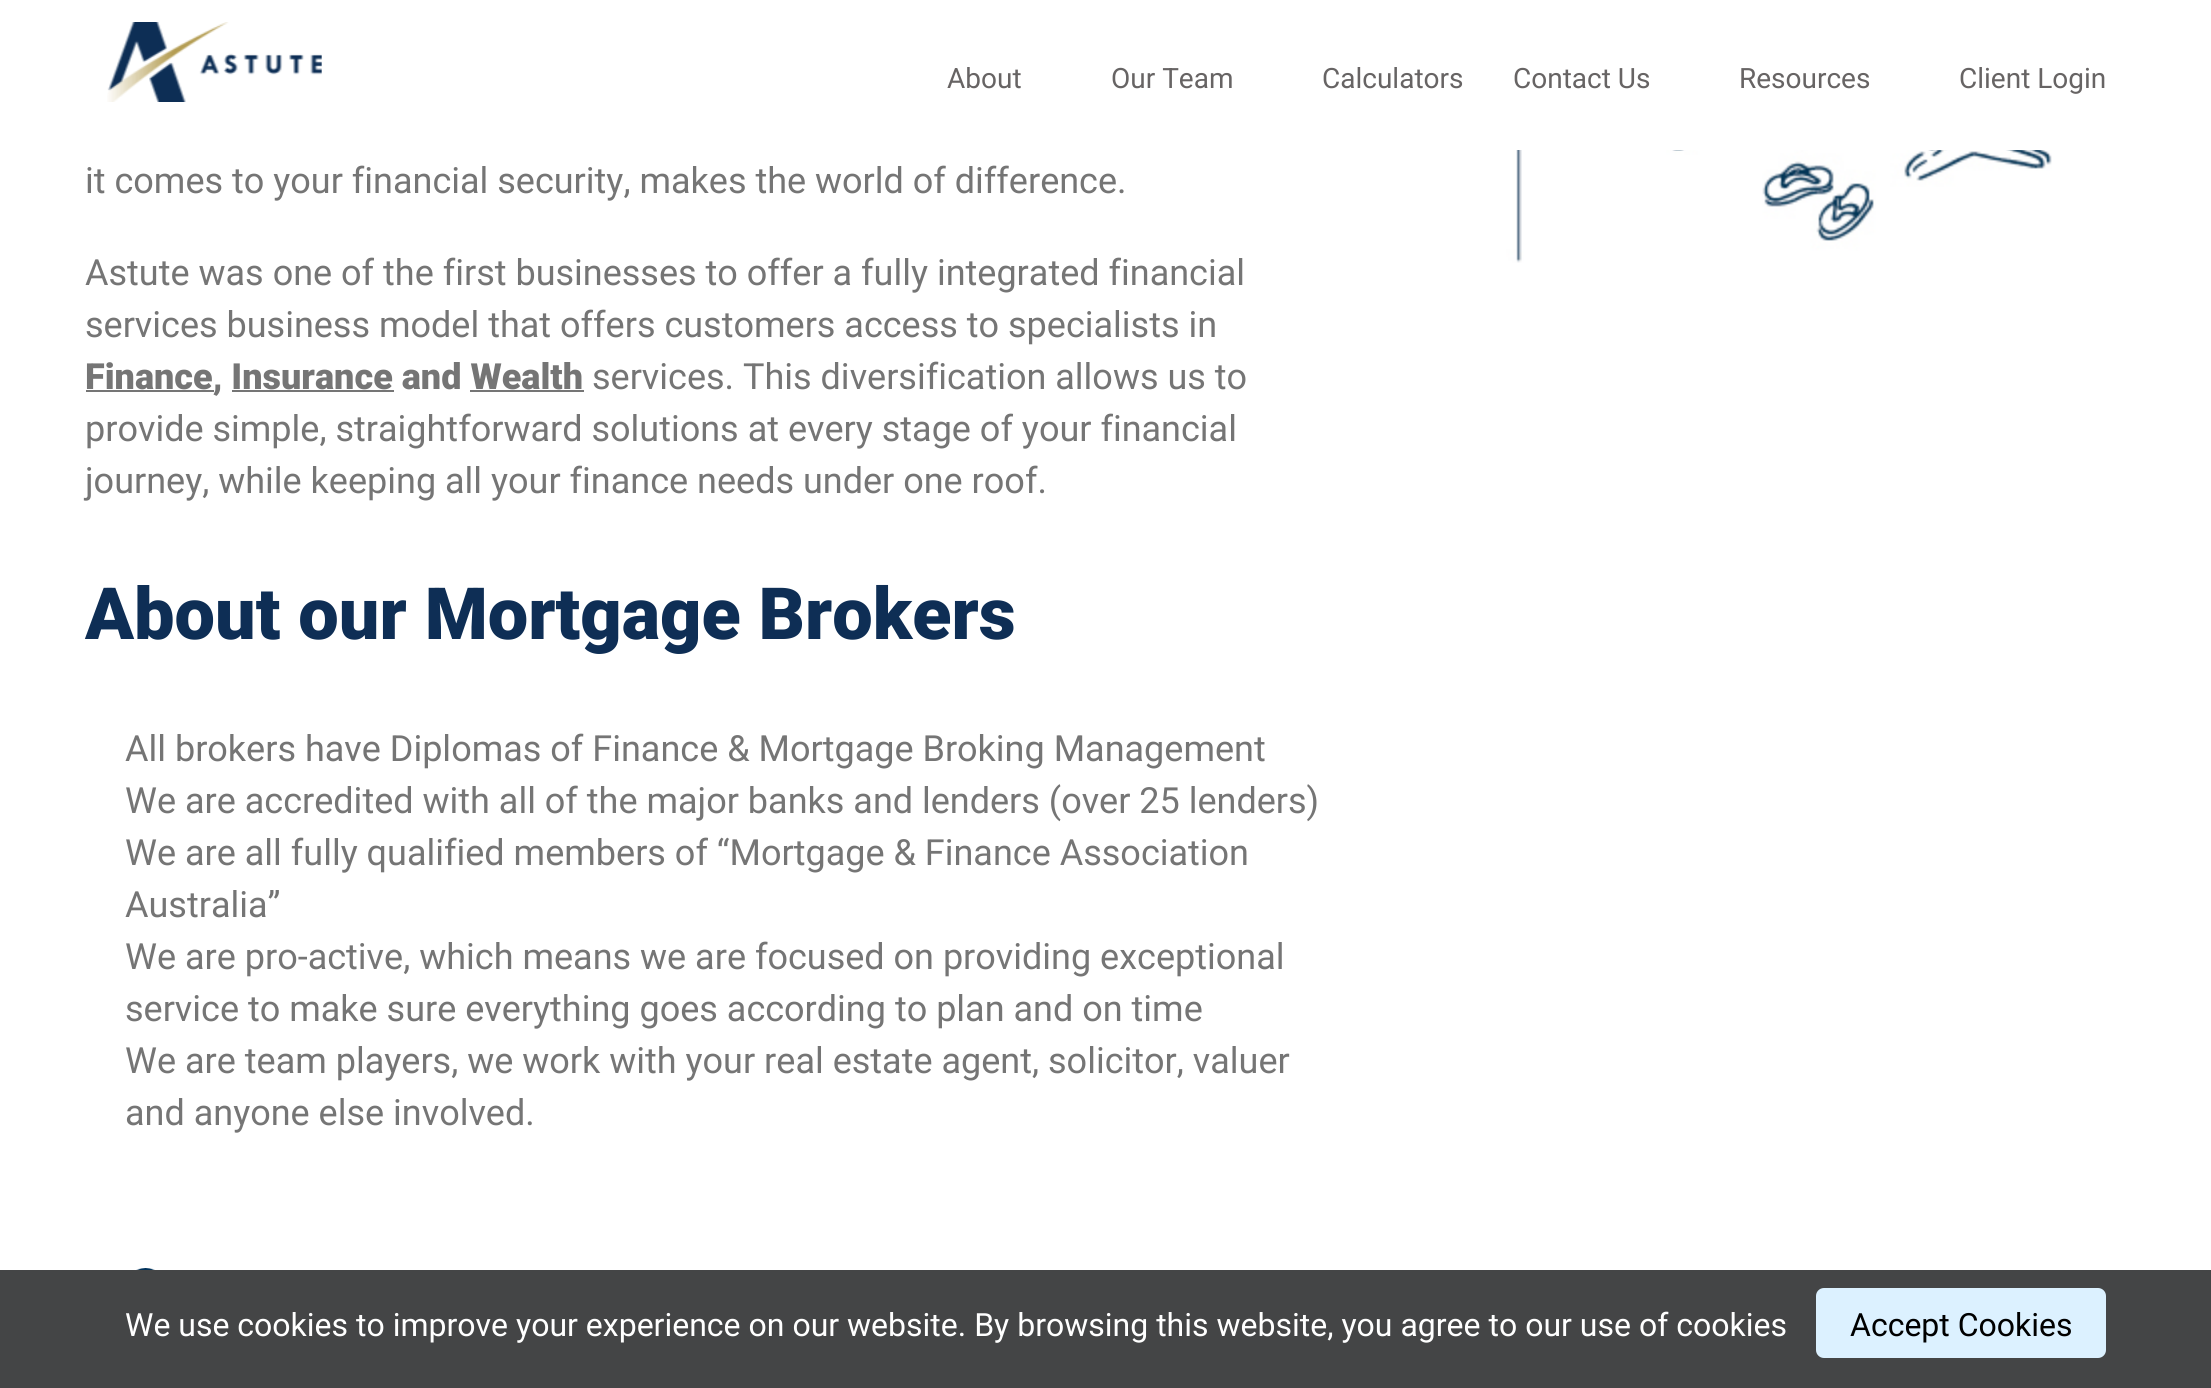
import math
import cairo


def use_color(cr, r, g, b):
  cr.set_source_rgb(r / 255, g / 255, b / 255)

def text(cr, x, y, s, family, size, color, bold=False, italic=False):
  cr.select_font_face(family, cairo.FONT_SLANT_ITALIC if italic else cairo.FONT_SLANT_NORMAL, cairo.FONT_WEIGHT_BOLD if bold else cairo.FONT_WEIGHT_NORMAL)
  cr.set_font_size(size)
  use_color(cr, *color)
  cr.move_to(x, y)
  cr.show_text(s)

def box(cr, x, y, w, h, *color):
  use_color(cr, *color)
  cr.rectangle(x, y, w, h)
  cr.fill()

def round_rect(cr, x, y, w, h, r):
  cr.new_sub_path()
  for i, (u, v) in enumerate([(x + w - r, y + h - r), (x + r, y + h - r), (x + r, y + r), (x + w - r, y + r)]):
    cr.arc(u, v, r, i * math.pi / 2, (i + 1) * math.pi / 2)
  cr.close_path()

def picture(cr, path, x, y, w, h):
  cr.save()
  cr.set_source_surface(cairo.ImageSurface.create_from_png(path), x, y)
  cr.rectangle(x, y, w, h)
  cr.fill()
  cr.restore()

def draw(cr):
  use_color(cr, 255, 255, 255)
  cr.paint()
  picture(cr, "img_01.png", 107, 22, 215, 80)
  box(cr, 86, 390, 128, 2, 117, 117, 117)
  box(cr, 232, 390, 162, 2, 117, 117, 117)
  box(cr, 470, 390, 114, 2, 117, 117, 117)
  picture(cr, "img_02.png", 1432, 150, 648, 113)
  picture(cr, "img_03.png", 136, 1268, 19, 2)
  box(cr, 0, 1270, 2211, 118, 68, 69, 70)
  use_color(cr, 220, 241, 255)
  round_rect(cr, 1816, 1288, 290, 70, 8)
  cr.fill()
  text(cr, 947, 88, "About", "Roboto", 28, (103, 100, 100))
  text(cr, 1111, 88, "Our Team", "Roboto", 28, (103, 100, 100))
  text(cr, 1322, 88, "Calculators", "Roboto", 28, (103, 100, 100))
  text(cr, 1513, 88, "Contact Us", "Roboto", 28, (103, 100, 100))
  text(cr, 1739, 88, "Resources", "Roboto", 28, (103, 100, 100))
  text(cr, 1959, 88, "Client Login", "Roboto", 28, (103, 100, 100))
  text(cr, 85, 193, "it comes to your financial security, makes the world of difference.", "Roboto", 36, (117, 117, 117))
  text(cr, 85, 285, "Astute was one of the first businesses to offer a fully integrated financial", "Roboto", 36, (117, 117, 117))
  text(cr, 85, 337, "services business model that offers customers access to specialists in", "Roboto", 36, (117, 117, 117))
  text(cr, 85, 389, "Finance, Insurance and Wealth", "Roboto Black", 36, (117, 117, 117))
  text(cr, 592, 389, "services. This diversification allows us to", "Roboto", 36, (117, 117, 117))
  text(cr, 85, 441, "provide simple, straightforward solutions at every stage of your financial", "Roboto", 36, (117, 117, 117))
  text(cr, 85, 493, "journey, while keeping all your finance needs under one roof.", "Roboto", 36, (117, 117, 117))
  text(cr, 85, 639, "About our Mortgage Brokers", "Roboto Black", 72, (14, 46, 85))
  text(cr, 125, 761, "All brokers have Diplomas of Finance & Mortgage Broking Management", "Roboto", 36, (117, 117, 117))
  text(cr, 125, 813, "We are accredited with all of the major banks and lenders (over 25 lenders)", "Roboto", 36, (117, 117, 117))
  text(cr, 125, 865, "We are all fully qualified members of “Mortgage & Finance Association", "Roboto", 36, (117, 117, 117))
  text(cr, 125, 917, "Australia”", "Roboto", 36, (117, 117, 117))
  text(cr, 125, 969, "We are pro-active, which means we are focused on providing exceptional", "Roboto", 36, (117, 117, 117))
  text(cr, 125, 1021, "service to make sure everything goes according to plan and on time", "Roboto", 36, (117, 117, 117))
  text(cr, 125, 1073, "We are team players, we work with your real estate agent, solicitor, valuer", "Roboto", 36, (117, 117, 117))
  text(cr, 125, 1125, "and anyone else involved.", "Roboto", 36, (117, 117, 117))
  text(cr, 125, 1336, "We use cookies to improve your experience on our website. By browsing this website, you agree to our use of cookies", "Roboto", 32, (255, 255, 255))
  text(cr, 1850, 1336, "Accept Cookies", "Roboto", 32, (0, 0, 0))


surface = cairo.ImageSurface(cairo.FORMAT_RGB24, 2211, 1388)
cr = cairo.Context(surface)
options = cairo.FontOptions()
options.set_hint_metrics(cairo.HINT_METRICS_OFF)
options.set_hint_style(cairo.HINT_STYLE_NONE)
cr.set_font_options(options)
cr.set_miter_limit(4)
draw(cr)
surface.write_to_png("out.png")
